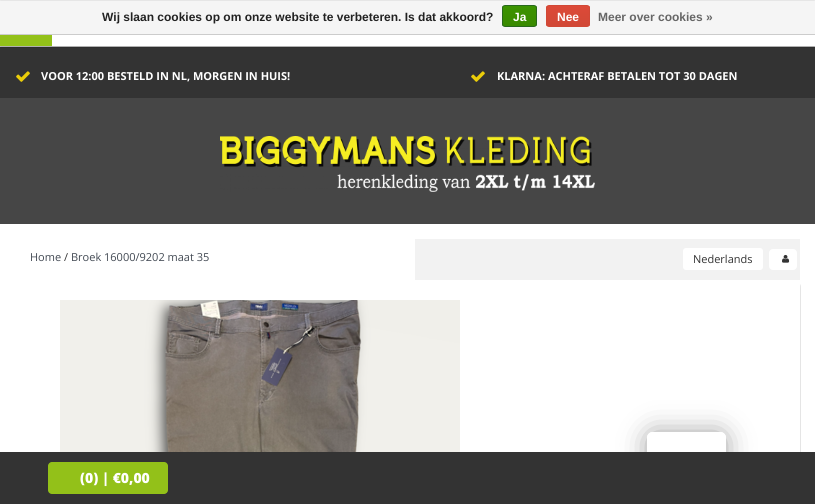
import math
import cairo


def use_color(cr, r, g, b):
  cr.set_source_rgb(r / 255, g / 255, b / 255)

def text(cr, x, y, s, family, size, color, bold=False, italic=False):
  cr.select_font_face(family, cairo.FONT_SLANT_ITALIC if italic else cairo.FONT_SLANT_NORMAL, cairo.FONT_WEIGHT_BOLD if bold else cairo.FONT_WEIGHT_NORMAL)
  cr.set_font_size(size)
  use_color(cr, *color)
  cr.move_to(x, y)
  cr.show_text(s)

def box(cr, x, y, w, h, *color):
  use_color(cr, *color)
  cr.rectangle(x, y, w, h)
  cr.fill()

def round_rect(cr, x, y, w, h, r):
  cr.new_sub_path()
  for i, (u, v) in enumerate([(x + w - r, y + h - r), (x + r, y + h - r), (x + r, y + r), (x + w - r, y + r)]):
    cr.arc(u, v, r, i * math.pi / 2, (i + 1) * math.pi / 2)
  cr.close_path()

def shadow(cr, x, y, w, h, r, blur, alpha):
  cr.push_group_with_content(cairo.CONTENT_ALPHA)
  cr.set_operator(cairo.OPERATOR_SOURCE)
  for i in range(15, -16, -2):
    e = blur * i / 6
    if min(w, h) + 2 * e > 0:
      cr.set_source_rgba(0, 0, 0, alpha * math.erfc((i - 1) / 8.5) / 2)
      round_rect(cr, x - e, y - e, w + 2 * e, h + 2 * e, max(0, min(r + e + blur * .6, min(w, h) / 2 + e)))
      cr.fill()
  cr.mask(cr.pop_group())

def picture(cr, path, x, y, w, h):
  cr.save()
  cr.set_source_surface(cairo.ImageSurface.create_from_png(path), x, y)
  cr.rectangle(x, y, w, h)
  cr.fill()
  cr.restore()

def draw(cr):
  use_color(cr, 255, 255, 255)
  cr.paint()
  box(cr, 0, 98, 815, 126, 70, 70, 70)
  box(cr, 0, 47, 815, 51, 51, 51, 51)
  use_color(cr, 0, 0, 0)
  shadow(cr, 0, 1, 815, 46, 0, 0.5, 0.2)
  shadow(cr, 0, 1, 815, 46, 0, 0.5, 0.2)
  box(cr, 0, 35, 52, 11, 147, 193, 25)
  box(cr, 52, 35, 763, 11, 255, 255, 255)
  picture(cr, "img_01.png", 220, 136, 375, 56)
  box(cr, 0, 1, 815, 33, 245, 245, 245)
  box(cr, 0, 34, 815, 1, 204, 204, 204)
  cr.save()
  round_rect(cr, 502, 5, 35, 22, 3)
  cr.clip()
  gradient = cairo.LinearGradient(520, 6, 520, 26)
  gradient.add_color_stop_rgba(0, 0.235, 0.576, 0, 1)
  gradient.add_color_stop_rgba(1, 0.224, 0.541, 0, 1)
  cr.set_source(gradient)
  cr.rectangle(502, 6, 35, 20)
  cr.fill()
  cr.restore()
  round_rect(cr, 502.5, 5.5, 34, 21, 2.5)
  use_color(cr, 41, 105, 29)
  cr.set_line_width(1)
  cr.stroke()
  cr.save()
  round_rect(cr, 546, 5, 44, 22, 3)
  cr.clip()
  gradient = cairo.LinearGradient(568, 6, 568, 26)
  gradient.add_color_stop_rgba(0, 0.863, 0.29, 0.22, 1)
  gradient.add_color_stop_rgba(1, 0.82, 0.282, 0.212, 1)
  cr.set_source(gradient)
  cr.rectangle(546, 6, 44, 20)
  cr.fill()
  cr.restore()
  round_rect(cr, 546.5, 5.5, 43, 21, 2.5)
  use_color(cr, 209, 72, 54)
  cr.stroke()
  picture(cr, "img_02.png", 16, 71, 14, 11)
  picture(cr, "img_02.png", 471, 71, 14, 11)
  box(cr, 415, 239, 385, 41, 242, 242, 242)
  use_color(cr, 255, 255, 255)
  round_rect(cr, 683, 248, 80, 22, 3)
  cr.fill()
  round_rect(cr, 769, 249, 28, 21, 4)
  cr.fill()
  picture(cr, "img_03.png", 782, 254, 8, 9)
  use_color(cr, 229, 229, 229)
  cr.new_path()
  cr.move_to(31, 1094)
  cr.curve_to(32, 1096, 34, 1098, 37, 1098)
  cr.line_to(795, 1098)
  cr.curve_to(798, 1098, 801, 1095, 801, 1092)
  cr.line_to(801, 288)
  cr.curve_to(801, 287, 801, 285, 800, 284)
  cr.line_to(800, 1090)
  cr.curve_to(800, 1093, 797, 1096, 794, 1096)
  cr.line_to(36, 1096)
  cr.curve_to(34, 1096, 32, 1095, 31, 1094)
  cr.close_path()
  cr.fill()
  picture(cr, "img_04.png", 60, 300, 400, 152)
  cr.save()
  cr.set_fill_rule(cairo.FILL_RULE_EVEN_ODD)
  cr.new_path()
  cr.move_to(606, 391)
  cr.line_to(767, 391)
  cr.line_to(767, 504)
  cr.line_to(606, 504)
  cr.close_path()
  cr.move_to(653, 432)
  cr.line_to(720, 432)
  cr.curve_to(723.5, 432, 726, 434.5, 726, 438)
  cr.line_to(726, 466)
  cr.curve_to(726, 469.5, 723.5, 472, 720, 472)
  cr.line_to(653, 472)
  cr.curve_to(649.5, 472, 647, 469.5, 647, 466)
  cr.line_to(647, 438)
  cr.curve_to(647, 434.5, 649.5, 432, 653, 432)
  cr.close_path()
  cr.clip()
  use_color(cr, 0, 0, 0)
  shadow(cr, 652, 437, 69, 30, 1, 15, 0.5)
  cr.restore()
  cr.set_source_rgba(1, 1, 1, 0.9)
  round_rect(cr, 647, 432, 79, 40, 6)
  cr.fill()
  box(cr, 0, 452, 815, 52, 51, 51, 51)
  use_color(cr, 147, 193, 25)
  round_rect(cr, 48, 462, 120, 32, 4)
  cr.fill()
  text(cr, 102, 21, "Wij slaan cookies op om onze website te verbeteren. Is dat akkoord?", "Liberation Sans", 12, (34, 34, 34), bold=True)
  text(cr, 513, 21, "Ja", "Liberation Sans", 12, (255, 255, 255), bold=True)
  text(cr, 557, 21, "Nee", "Liberation Sans", 12, (255, 255, 255), bold=True)
  text(cr, 598, 21, "Meer over cookies »", "Liberation Sans", 12, (102, 102, 102), bold=True)
  text(cr, 41, 80, "VOOR 12:00 BESTELD IN NL, MORGEN IN HUIS!", "Open Sans", 11, (255, 255, 255), bold=True)
  text(cr, 497, 80, "KLARNA: ACHTERAF BETALEN TOT 30 DAGEN", "Open Sans", 11, (255, 255, 255), bold=True)
  text(cr, 30, 261, "Home", "Open Sans", 11, (67, 74, 84))
  text(cr, 64, 261, "/", "Open Sans", 11, (51, 51, 51))
  text(cr, 71, 261, "Broek 16000/9202 maat 35", "Open Sans", 11, (67, 74, 84))
  text(cr, 693, 263, "Nederlands", "Open Sans", 11, (51, 51, 51))
  text(cr, 80, 483, "(0) | €0,00", "Open Sans ExtraBold", 14, (255, 255, 255))


surface = cairo.ImageSurface(cairo.FORMAT_RGB24, 815, 504)
cr = cairo.Context(surface)
options = cairo.FontOptions()
options.set_hint_metrics(cairo.HINT_METRICS_OFF)
options.set_hint_style(cairo.HINT_STYLE_NONE)
cr.set_font_options(options)
cr.set_miter_limit(4)
draw(cr)
surface.write_to_png("out.png")
